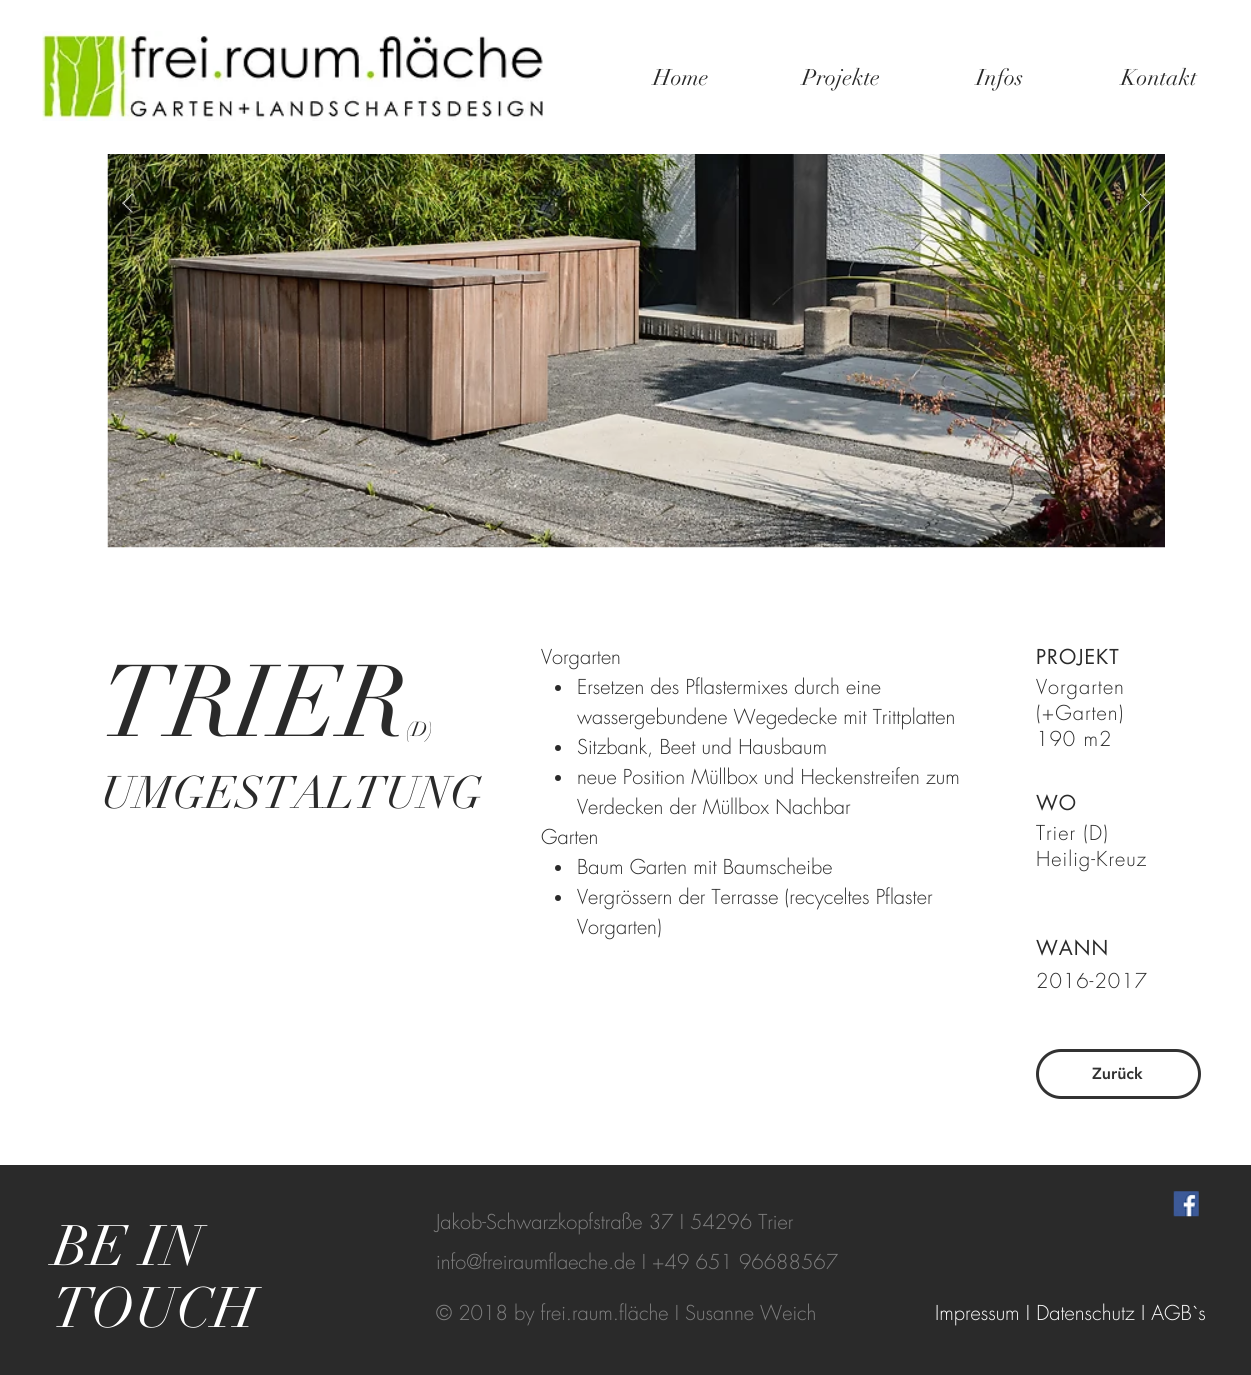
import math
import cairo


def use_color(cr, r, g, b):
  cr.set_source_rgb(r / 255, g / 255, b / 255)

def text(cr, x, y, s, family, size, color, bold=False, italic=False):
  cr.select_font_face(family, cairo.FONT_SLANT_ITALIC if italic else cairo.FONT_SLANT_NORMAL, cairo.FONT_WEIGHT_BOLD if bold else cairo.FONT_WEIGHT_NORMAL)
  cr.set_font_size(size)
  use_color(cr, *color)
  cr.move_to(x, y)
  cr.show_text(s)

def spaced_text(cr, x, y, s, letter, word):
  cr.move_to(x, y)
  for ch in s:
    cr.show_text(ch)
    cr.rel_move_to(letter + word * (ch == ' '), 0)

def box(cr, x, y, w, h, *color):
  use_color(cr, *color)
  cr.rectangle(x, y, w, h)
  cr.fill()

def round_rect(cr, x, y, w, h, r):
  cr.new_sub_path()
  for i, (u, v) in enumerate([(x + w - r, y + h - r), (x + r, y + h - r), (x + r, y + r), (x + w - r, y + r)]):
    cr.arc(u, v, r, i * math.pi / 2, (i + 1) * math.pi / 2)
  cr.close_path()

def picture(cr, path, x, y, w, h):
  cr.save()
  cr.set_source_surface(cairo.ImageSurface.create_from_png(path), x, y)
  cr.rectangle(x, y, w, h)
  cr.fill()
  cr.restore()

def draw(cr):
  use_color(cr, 255, 255, 255)
  cr.paint()
  picture(cr, "img_01.png", 42, 31, 501, 90)
  picture(cr, "img_02.png", 107, 154, 1058, 394)
  picture(cr, "img_03.png", 122, 193, 11, 21)
  picture(cr, "img_04.png", 1140, 193, 10, 21)
  use_color(cr, 42, 42, 42)
  cr.arc(558, 688, 3, 0, 2 * math.pi)
  cr.fill()
  cr.arc(558, 748, 3, 0, 2 * math.pi)
  cr.fill()
  cr.arc(558, 778, 3, 0, 2 * math.pi)
  cr.fill()
  cr.arc(558, 868, 3, 0, 2 * math.pi)
  cr.fill()
  cr.arc(558, 898, 3, 0, 2 * math.pi)
  cr.fill()
  round_rect(cr, 1037.5, 1050.5, 162, 47, 23.5)
  use_color(cr, 50, 50, 50)
  cr.set_line_width(3)
  cr.stroke()
  box(cr, 0, 1165, 1251, 210, 42, 42, 42)
  picture(cr, "img_05.png", 1173, 1191, 26, 26)
  text(cr, 653, 85, "Home", "didot", 22.5, (42, 42, 42))
  text(cr, 802, 85, "Projekte", "didot", 22.5, (42, 42, 42))
  text(cr, 976, 85, "Infos", "didot", 22.5, (42, 42, 42))
  text(cr, 1121, 85, "Kontakt", "didot", 22.5, (42, 42, 42))
  text(cr, 541, 664, "Vorgarten", "futura Light", 20, (42, 42, 42))
  text(cr, 577, 694, "Ersetzen des Pflastermixes durch eine", "futura Light", 20, (42, 42, 42))
  text(cr, 577, 724, "wassergebundene Wegedecke mit Trittplatten", "futura Light", 20, (42, 42, 42))
  text(cr, 577, 754, "Sitzbank, Beet und Hausbaum", "futura Light", 20, (42, 42, 42))
  text(cr, 577, 784, "neue Position Müllbox und Heckenstreifen zum", "futura Light", 20, (42, 42, 42))
  text(cr, 577, 814, "Verdecken der Müllbox Nachbar", "futura Light", 20, (42, 42, 42))
  text(cr, 541, 844, "Garten", "futura Light", 20, (42, 42, 42))
  text(cr, 577, 874, "Baum Garten mit Baumscheibe", "futura Light", 20, (42, 42, 42))
  text(cr, 577, 904, "Vergrössern der Terrasse (recyceltes Pflaster", "futura Light", 20, (42, 42, 42))
  text(cr, 577, 934, "Vorgarten)", "futura Light", 20, (42, 42, 42))
  cr.select_font_face("futura")
  spaced_text(cr, 1036, 664, "PROJEKT", 1, 0)
  text(cr, 101, 736, "TRIER", "didot", 100, (42, 42, 42))
  text(cr, 406, 736, "(D)", "didot", 20, (42, 42, 42))
  text(cr, 101, 808, "UMGESTALTUNG", "didot", 45, (42, 42, 42))
  cr.select_font_face("futura Light")
  cr.set_font_size(20)
  spaced_text(cr, 1036, 694, "Vorgarten", 1, 0)
  spaced_text(cr, 1036, 720, "(+Garten)", 1, 0)
  spaced_text(cr, 1036, 746, "190 m2", 1, 0)
  cr.select_font_face("futura")
  spaced_text(cr, 1036, 810, "WO", 1, 0)
  cr.select_font_face("futura Light")
  spaced_text(cr, 1036, 840, "Trier (D)", 1, 0)
  spaced_text(cr, 1036, 866, "Heilig-Kreuz", 1, 0)
  cr.select_font_face("futura")
  spaced_text(cr, 1036, 955, "WANN", 1, 0)
  cr.select_font_face("futura Light")
  spaced_text(cr, 1036, 988, "2016-2017", 1, 0)
  text(cr, 1092, 1079, "Zurück", "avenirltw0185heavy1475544 Black", 16, (50, 50, 50))
  text(cr, 53, 1265, "BE IN", "didot", 56, (255, 255, 255))
  text(cr, 53, 1327, "TOUCH", "didot", 56, (255, 255, 255))
  text(cr, 436, 1229, "Jakob-Schwarzkopfstraße 37 I 54296 Trier", "futura Light", 20, (128, 128, 128))
  text(cr, 436, 1269, "info@freiraumflaeche.de I +49 651 96688567", "futura Light", 20, (128, 128, 128))
  text(cr, 436, 1320, "© 2018 by frei.raum.fläche I Susanne Weich", "futura Light", 20, (128, 128, 128))
  text(cr, 935, 1320, "Impressum I Datenschutz I AGB`s", "futura Light", 20, (255, 255, 255))


surface = cairo.ImageSurface(cairo.FORMAT_RGB24, 1251, 1375)
cr = cairo.Context(surface)
options = cairo.FontOptions()
options.set_hint_metrics(cairo.HINT_METRICS_OFF)
options.set_hint_style(cairo.HINT_STYLE_NONE)
cr.set_font_options(options)
cr.set_miter_limit(4)
draw(cr)
surface.write_to_png("out.png")
